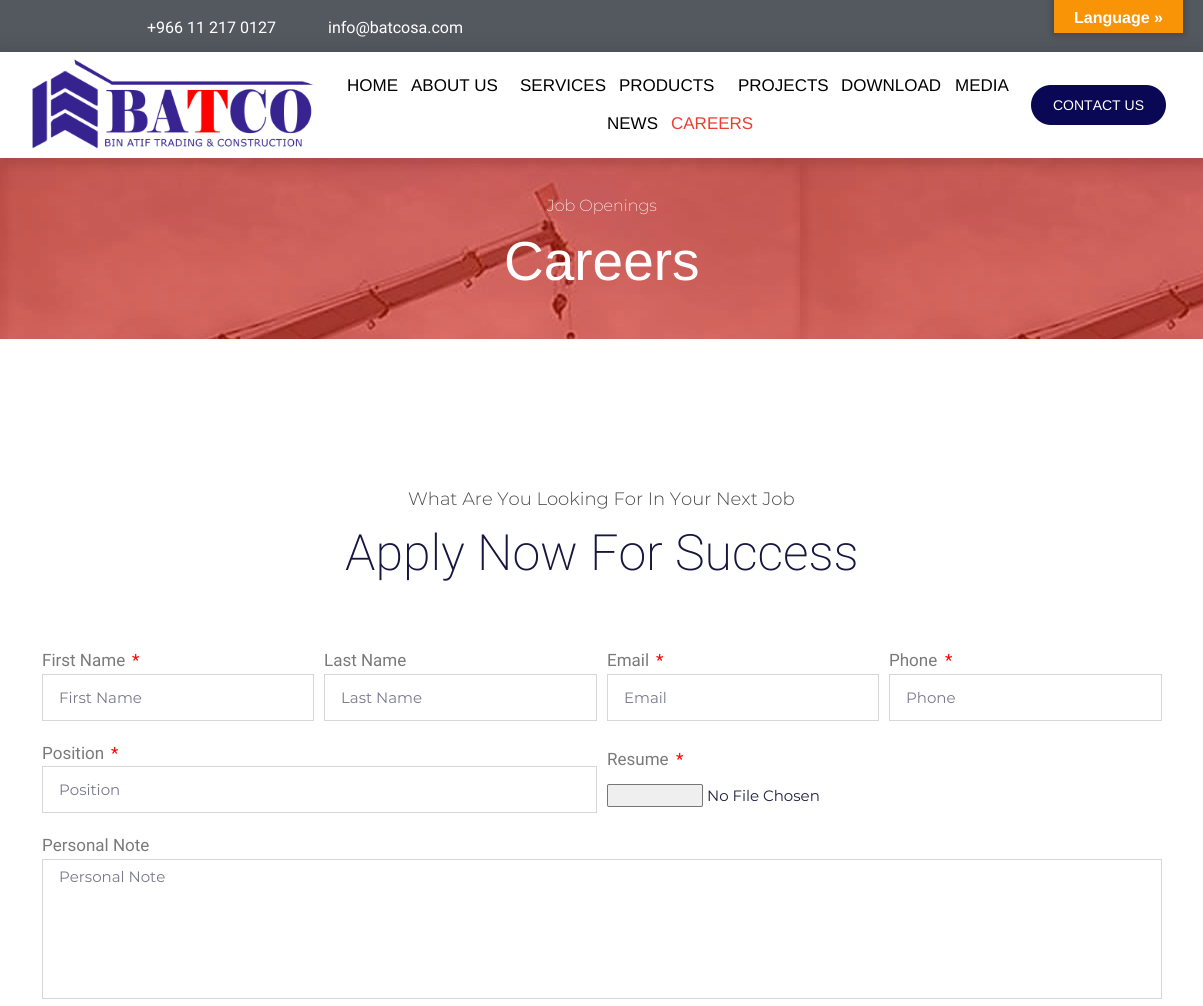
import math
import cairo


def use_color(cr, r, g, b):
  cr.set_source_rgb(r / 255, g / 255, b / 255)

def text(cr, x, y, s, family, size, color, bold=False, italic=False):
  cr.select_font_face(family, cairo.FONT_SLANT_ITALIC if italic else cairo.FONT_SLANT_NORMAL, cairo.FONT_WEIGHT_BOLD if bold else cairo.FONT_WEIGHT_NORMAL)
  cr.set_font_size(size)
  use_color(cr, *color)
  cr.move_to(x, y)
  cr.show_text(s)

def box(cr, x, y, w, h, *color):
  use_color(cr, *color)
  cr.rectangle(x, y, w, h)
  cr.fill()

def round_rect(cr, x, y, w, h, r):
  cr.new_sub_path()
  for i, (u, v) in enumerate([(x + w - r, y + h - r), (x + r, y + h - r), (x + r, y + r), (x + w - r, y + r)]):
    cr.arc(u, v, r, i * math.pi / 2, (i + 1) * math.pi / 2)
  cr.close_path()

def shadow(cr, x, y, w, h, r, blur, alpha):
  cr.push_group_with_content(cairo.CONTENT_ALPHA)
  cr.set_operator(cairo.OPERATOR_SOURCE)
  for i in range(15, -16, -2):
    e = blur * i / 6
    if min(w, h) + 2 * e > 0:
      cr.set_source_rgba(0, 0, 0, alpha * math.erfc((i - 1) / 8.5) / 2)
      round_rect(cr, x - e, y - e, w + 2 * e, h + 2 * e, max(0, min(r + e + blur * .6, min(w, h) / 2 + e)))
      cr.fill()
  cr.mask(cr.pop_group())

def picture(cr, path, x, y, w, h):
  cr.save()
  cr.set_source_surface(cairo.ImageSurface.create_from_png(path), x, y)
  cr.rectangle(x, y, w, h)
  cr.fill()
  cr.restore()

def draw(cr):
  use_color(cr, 255, 255, 255)
  cr.paint()
  box(cr, 0, 0, 1203, 52, 84, 89, 95)
  use_color(cr, 0, 0, 0)
  shadow(cr, 1054, 0, 129, 33, 0, 4.5, 0.3)
  picture(cr, "img_02.png", 0, 158, 1203, 181)
  cr.save()
  cr.set_fill_rule(cairo.FILL_RULE_EVEN_ODD)
  cr.new_path()
  cr.move_to(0, 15)
  cr.line_to(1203, 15)
  cr.line_to(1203, 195)
  cr.line_to(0, 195)
  cr.close_path()
  cr.move_to(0, 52)
  cr.line_to(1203, 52)
  cr.line_to(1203, 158)
  cr.line_to(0, 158)
  cr.close_path()
  cr.clip()
  shadow(cr, 0, 52, 1203, 106, 0, 12, 0.15)
  cr.restore()
  box(cr, 1054, 0, 129, 33, 248, 148, 6)
  picture(cr, "img_01.png", 32, 59, 281, 90)
  use_color(cr, 10, 8, 84)
  round_rect(cr, 1031, 85, 135, 40, 20)
  cr.fill()
  cr.rectangle(42.5, 674.5, 271, 46)
  use_color(cr, 215, 215, 217)
  cr.set_line_width(1)
  cr.stroke()
  cr.rectangle(324.5, 674.5, 272, 46)
  cr.stroke()
  cr.rectangle(607.5, 674.5, 271, 46)
  cr.stroke()
  cr.rectangle(889.5, 674.5, 272, 46)
  cr.stroke()
  cr.rectangle(42.5, 766.5, 554, 46)
  cr.stroke()
  use_color(cr, 239, 239, 239)
  round_rect(cr, 607.5, 784.5, 95, 22, 1.5)
  cr.fill_preserve()
  use_color(cr, 118, 118, 118)
  cr.stroke()
  cr.rectangle(42.5, 859.5, 1119, 139)
  use_color(cr, 215, 215, 217)
  cr.stroke()
  text(cr, 1074, 23, "Language »", "Liberation Sans", 16, (255, 255, 255), bold=True)
  text(cr, 147, 33, "+966 11 217 0127", "Roboto", 16, (255, 255, 255))
  text(cr, 328, 33, "info@batcosa.com", "Roboto", 16, (255, 255, 255))
  text(cr, 347, 91, "HOME", "Liberation Sans", 17, (0, 0, 0))
  text(cr, 411, 91, "ABOUT US", "Liberation Sans", 17, (0, 0, 0))
  text(cr, 520, 91, "SERVICES", "Liberation Sans", 17, (0, 0, 0))
  text(cr, 619, 91, "PRODUCTS", "Liberation Sans", 17, (0, 0, 0))
  text(cr, 738, 91, "PROJECTS", "Liberation Sans", 17, (0, 0, 0))
  text(cr, 841, 91, "DOWNLOAD", "Liberation Sans", 17, (0, 0, 0))
  text(cr, 955, 91, "MEDIA", "Liberation Sans", 17, (0, 0, 0))
  text(cr, 607, 129, "NEWS", "Liberation Sans", 17, (0, 0, 0))
  text(cr, 671, 129, "CAREERS", "Liberation Sans", 17, (234, 63, 51))
  text(cr, 1053, 110, "CONTACT US", "Liberation Sans", 14, (255, 255, 255))
  text(cr, 547, 211, "Job Openings", "Montserrat ExtraLight", 16, (255, 255, 255))
  text(cr, 504, 280, "Careers", "Liberation Sans", 55, (255, 255, 255))
  text(cr, 408, 505, "What Are You Looking For In Your Next Job", "Montserrat Light", 18, (74, 74, 74))
  text(cr, 345, 570, "Apply Now For Success", "Roboto ExtraLight", 50, (22, 22, 63))
  text(cr, 42, 666, "First Name", "Roboto", 17, (122, 122, 122))
  text(cr, 132, 666, "*", "Roboto", 17, (255, 0, 0))
  text(cr, 59, 703, "First Name", "Montserrat", 15, (122, 121, 140))
  text(cr, 324, 666, "Last Name", "Roboto", 17, (122, 122, 122))
  text(cr, 341, 703, "Last Name", "Montserrat", 15, (122, 121, 140))
  text(cr, 607, 666, "Email", "Roboto", 17, (122, 122, 122))
  text(cr, 656, 666, "*", "Roboto", 17, (255, 0, 0))
  text(cr, 624, 703, "Email", "Montserrat", 15, (122, 121, 140))
  text(cr, 889, 666, "Phone", "Roboto", 17, (122, 122, 122))
  text(cr, 945, 666, "*", "Roboto", 17, (255, 0, 0))
  text(cr, 906, 703, "Phone", "Montserrat", 15, (122, 121, 140))
  text(cr, 42, 759, "Position", "Roboto", 17, (122, 122, 122))
  text(cr, 111, 759, "*", "Roboto", 17, (255, 0, 0))
  text(cr, 59, 795, "Position", "Montserrat", 15, (122, 121, 140))
  text(cr, 607, 765, "Resume", "Roboto", 17, (122, 122, 122))
  text(cr, 676, 765, "*", "Roboto", 17, (255, 0, 0))
  text(cr, 707, 801, "No File Chosen", "Montserrat", 15, (33, 31, 64))
  text(cr, 42, 851, "Personal Note", "Roboto", 17, (122, 122, 122))
  text(cr, 59, 882, "Personal Note", "Montserrat", 15, (122, 121, 140))


surface = cairo.ImageSurface(cairo.FORMAT_RGB24, 1203, 1006)
cr = cairo.Context(surface)
options = cairo.FontOptions()
options.set_hint_metrics(cairo.HINT_METRICS_OFF)
options.set_hint_style(cairo.HINT_STYLE_NONE)
cr.set_font_options(options)
cr.set_miter_limit(4)
draw(cr)
surface.write_to_png("out.png")
